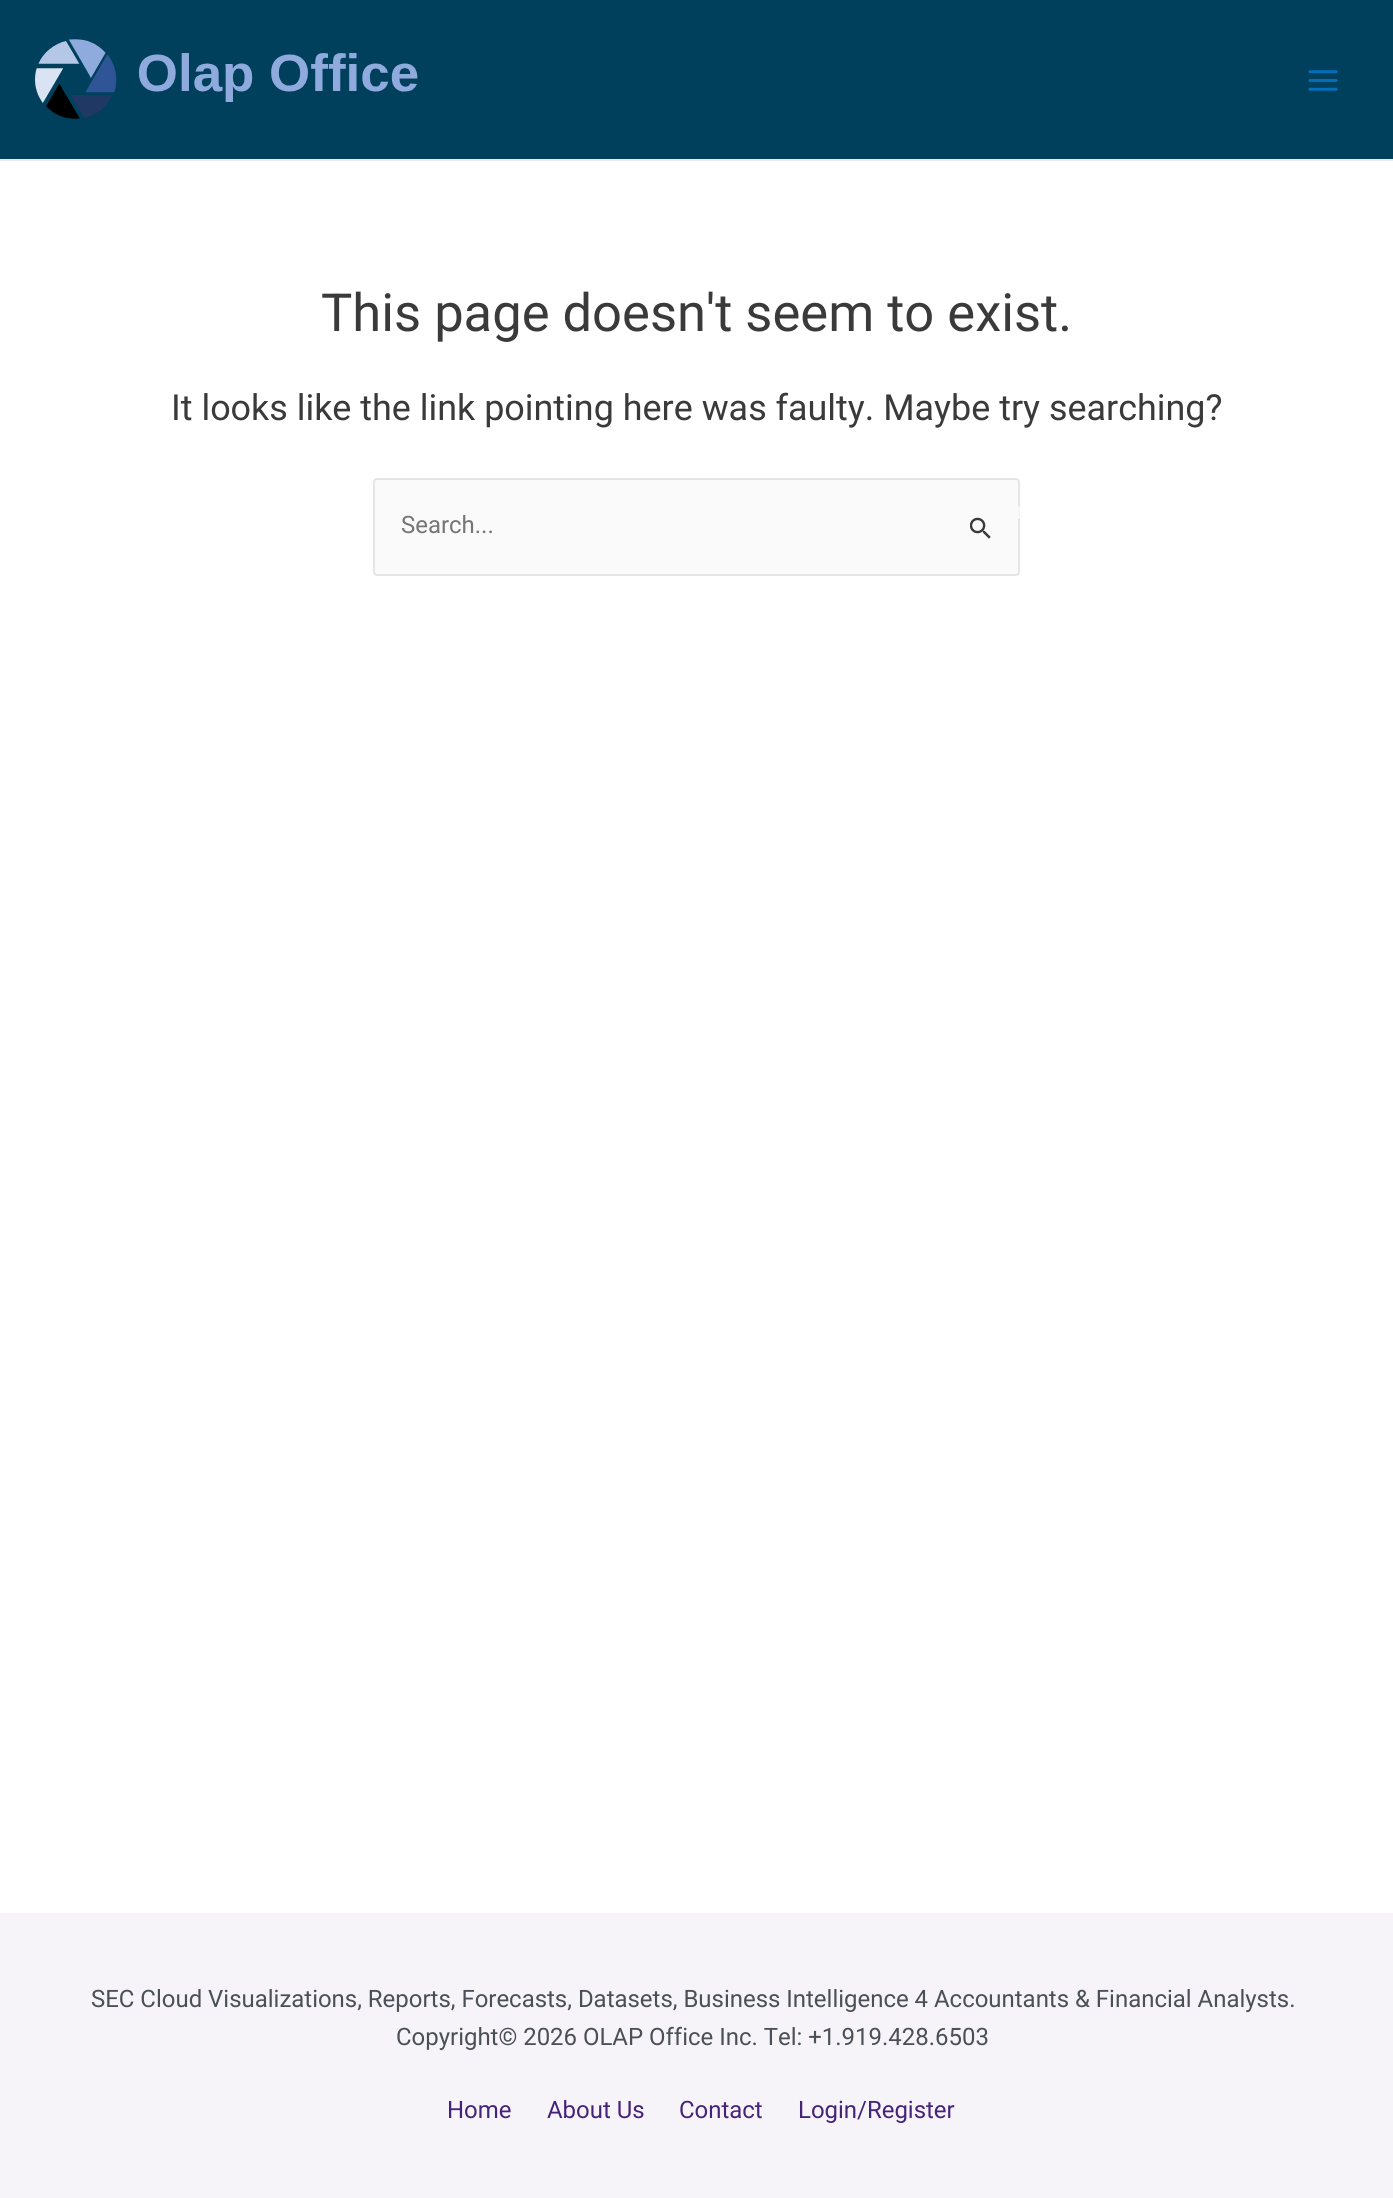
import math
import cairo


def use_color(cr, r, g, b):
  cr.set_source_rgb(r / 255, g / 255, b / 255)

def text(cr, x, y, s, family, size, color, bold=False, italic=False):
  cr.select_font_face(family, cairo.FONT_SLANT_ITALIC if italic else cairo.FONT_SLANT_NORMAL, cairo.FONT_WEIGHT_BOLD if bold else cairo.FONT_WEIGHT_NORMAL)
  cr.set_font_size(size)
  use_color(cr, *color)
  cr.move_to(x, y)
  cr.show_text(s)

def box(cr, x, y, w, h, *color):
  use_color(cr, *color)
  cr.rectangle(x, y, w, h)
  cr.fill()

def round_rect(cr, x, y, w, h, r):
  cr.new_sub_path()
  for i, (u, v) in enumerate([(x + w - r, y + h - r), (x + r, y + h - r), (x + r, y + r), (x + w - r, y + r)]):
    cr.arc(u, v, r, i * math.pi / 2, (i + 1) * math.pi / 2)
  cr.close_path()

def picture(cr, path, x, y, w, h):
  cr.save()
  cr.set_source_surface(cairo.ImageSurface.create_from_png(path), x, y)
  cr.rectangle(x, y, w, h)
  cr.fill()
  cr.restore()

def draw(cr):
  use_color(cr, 255, 255, 255)
  cr.paint()
  box(cr, 0, 0, 1393, 159, 0, 64, 93)
  box(cr, 0, 159, 1393, 2, 234, 234, 234)
  picture(cr, "img_01.png", 35, 39, 383, 80)
  picture(cr, "img_02.png", 1308, 70, 30, 21)
  use_color(cr, 250, 250, 250)
  round_rect(cr, 374, 479, 645, 96, 3)
  cr.fill_preserve()
  use_color(cr, 229, 229, 229)
  cr.stroke()
  picture(cr, "img_03.png", 970, 517, 21, 22)
  box(cr, 0, 1913, 1393, 285, 246, 244, 248)
  text(cr, 321, 331, "This page doesn't seem to exist.", "Roboto", 52.5, (58, 58, 58))
  text(cr, 171, 420, "It looks like the link pointing here was faulty. Maybe try searching?", "Roboto", 35.9, (58, 58, 58))
  cr.save()
  round_rect(cr, 942, 478, 78, 70, 4)
  cr.clip()
  text(cr, 1016, 519, "r", "Roboto", 23.95, (247, 247, 247))
  cr.restore()
  text(cr, 401, 533, "Search...", "Roboto", 23.95, (117, 117, 117))
  text(cr, 91, 2007, "SEC Cloud Visualizations, Reports, Forecasts, Datasets, Business Intelligence 4 Accountants & Financial Analysts.", "Roboto", 23.95, (75, 79, 88))
  text(cr, 396, 2045, "Copyright© 2026 OLAP Office Inc. Tel: +1.919.428.6503", "Roboto", 23.95, (75, 79, 88))
  text(cr, 447, 2118, "Home", "Roboto", 23.95, (70, 35, 122))
  text(cr, 547, 2118, "About Us", "Roboto", 23.95, (70, 35, 122))
  text(cr, 679, 2118, "Contact", "Roboto", 23.95, (70, 35, 122))
  text(cr, 798, 2118, "Login/Register", "Roboto", 23.95, (70, 35, 122))


surface = cairo.ImageSurface(cairo.FORMAT_RGB24, 1393, 2198)
cr = cairo.Context(surface)
options = cairo.FontOptions()
options.set_hint_metrics(cairo.HINT_METRICS_OFF)
options.set_hint_style(cairo.HINT_STYLE_NONE)
cr.set_font_options(options)
cr.set_miter_limit(4)
draw(cr)
surface.write_to_png("out.png")
